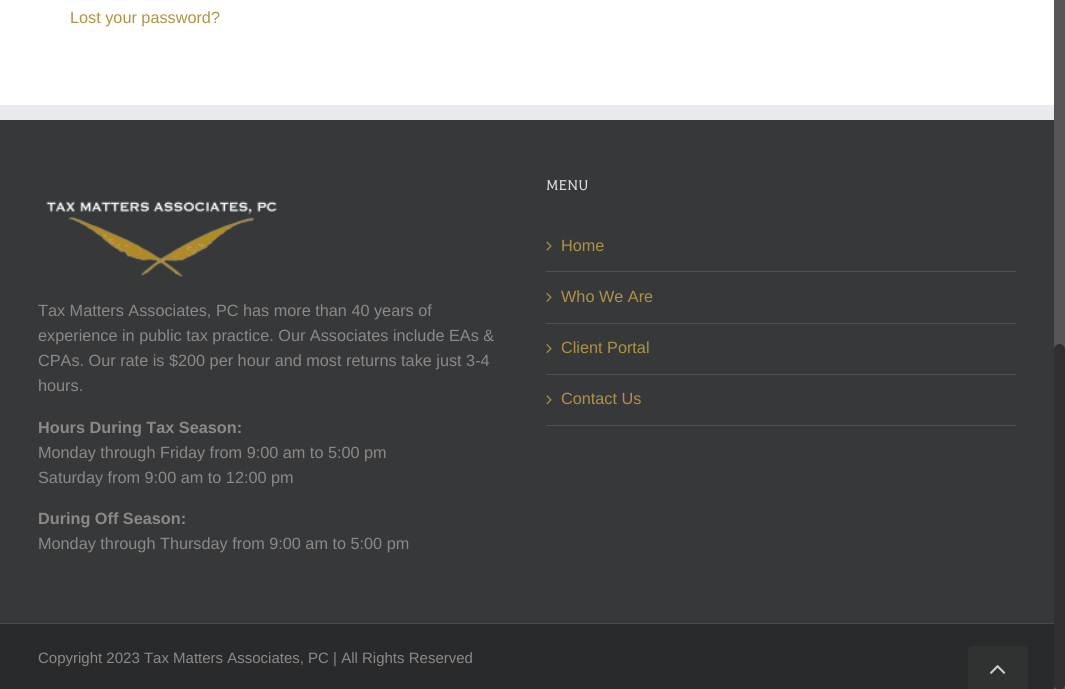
import math
import cairo


def use_color(cr, r, g, b):
  cr.set_source_rgb(r / 255, g / 255, b / 255)

def text(cr, x, y, s, family, size, color, bold=False, italic=False):
  cr.select_font_face(family, cairo.FONT_SLANT_ITALIC if italic else cairo.FONT_SLANT_NORMAL, cairo.FONT_WEIGHT_BOLD if bold else cairo.FONT_WEIGHT_NORMAL)
  cr.set_font_size(size)
  use_color(cr, *color)
  cr.move_to(x, y)
  cr.show_text(s)

def box(cr, x, y, w, h, *color):
  use_color(cr, *color)
  cr.rectangle(x, y, w, h)
  cr.fill()

def round_rect(cr, x, y, w, h, r):
  cr.new_sub_path()
  for i, (u, v) in enumerate([(x + w - r, y + h - r), (x + r, y + h - r), (x + r, y + r), (x + w - r, y + r)]):
    cr.arc(u, v, r, i * math.pi / 2, (i + 1) * math.pi / 2)
  cr.close_path()

def picture(cr, path, x, y, w, h):
  cr.save()
  cr.set_source_surface(cairo.ImageSurface.create_from_png(path), x, y)
  cr.rectangle(x, y, w, h)
  cr.fill()
  cr.restore()

def draw(cr):
  use_color(cr, 255, 255, 255)
  cr.paint()
  box(cr, 0, 120, 1054, 503, 54, 56, 57)
  box(cr, 0, 105, 1054, 15, 233, 234, 238)
  picture(cr, "img_01.png", 46, 201, 231, 76)
  box(cr, 546, 271, 470, 1, 80, 81, 82)
  picture(cr, "img_02.png", 546, 241, 6, 10)
  box(cr, 546, 323, 470, 1, 80, 81, 82)
  picture(cr, "img_03.png", 546, 292, 6, 10)
  box(cr, 546, 374, 470, 1, 80, 81, 82)
  picture(cr, "img_04.png", 546, 344, 6, 10)
  box(cr, 546, 425, 470, 1, 80, 81, 82)
  picture(cr, "img_05.png", 546, 395, 6, 10)
  box(cr, 0, 624, 1054, 65, 40, 42, 43)
  box(cr, 0, 623, 1054, 1, 75, 76, 77)
  use_color(cr, 48, 49, 49)
  cr.new_path()
  cr.move_to(973, 646)
  cr.line_to(1023, 646)
  cr.curve_to(1026, 646, 1028, 648, 1028, 651)
  cr.line_to(1028, 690)
  cr.line_to(968, 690)
  cr.line_to(968, 651)
  cr.curve_to(968, 648, 970, 646, 973, 646)
  cr.close_path()
  cr.fill()
  picture(cr, "img_06.png", 990, 665, 16, 9)
  box(cr, 1054, 0, 11, 689, 85, 85, 85)
  use_color(cr, 48, 48, 48)
  round_rect(cr, 1054, 344, 11, 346, 5.5)
  cr.fill()
  text(cr, 70, 23, "Lost your password?", "Liberation Sans", 16.25, (176, 146, 68))
  text(cr, 38, 316, "Tax Matters Associates, PC has more than 40 years of", "Liberation Sans", 16.25, (140, 137, 137))
  text(cr, 38, 341, "experience in public tax practice. Our Associates include EAs &", "Liberation Sans", 16.25, (140, 137, 137))
  text(cr, 38, 366, "CPAs. Our rate is $200 per hour and most returns take just 3-4", "Liberation Sans", 16.25, (140, 137, 137))
  text(cr, 38, 391, "hours.", "Liberation Sans", 16.25, (140, 137, 137))
  text(cr, 38, 433, "Hours During Tax Season:", "Liberation Sans", 16.25, (140, 137, 137), bold=True)
  text(cr, 38, 458, "Monday through Friday from 9:00 am to 5:00 pm", "Liberation Sans", 16.25, (140, 137, 137))
  text(cr, 38, 483, "Saturday from 9:00 am to 12:00 pm", "Liberation Sans", 16.25, (140, 137, 137))
  text(cr, 38, 524, "During Off Season:", "Liberation Sans", 16.25, (140, 137, 137), bold=True)
  text(cr, 38, 549, "Monday through Thursday from 9:00 am to 5:00 pm", "Liberation Sans", 16.25, (140, 137, 137))
  text(cr, 546, 190, "MENU", "Balthazar", 16.25, (221, 221, 221))
  text(cr, 561, 251, "Home", "Liberation Sans", 16.25, (176, 146, 68))
  text(cr, 561, 302, "Who We Are", "Liberation Sans", 16.25, (176, 146, 68))
  text(cr, 561, 353, "Client Portal", "Liberation Sans", 16.25, (176, 146, 68))
  text(cr, 561, 404, "Contact Us", "Liberation Sans", 16.25, (176, 146, 68))
  text(cr, 38, 663, "Copyright 2023 Tax Matters Associates, PC | All Rights Reserved", "Liberation Sans", 15, (140, 137, 137))


surface = cairo.ImageSurface(cairo.FORMAT_RGB24, 1065, 689)
cr = cairo.Context(surface)
options = cairo.FontOptions()
options.set_hint_metrics(cairo.HINT_METRICS_OFF)
options.set_hint_style(cairo.HINT_STYLE_NONE)
cr.set_font_options(options)
cr.set_miter_limit(4)
draw(cr)
surface.write_to_png("out.png")
